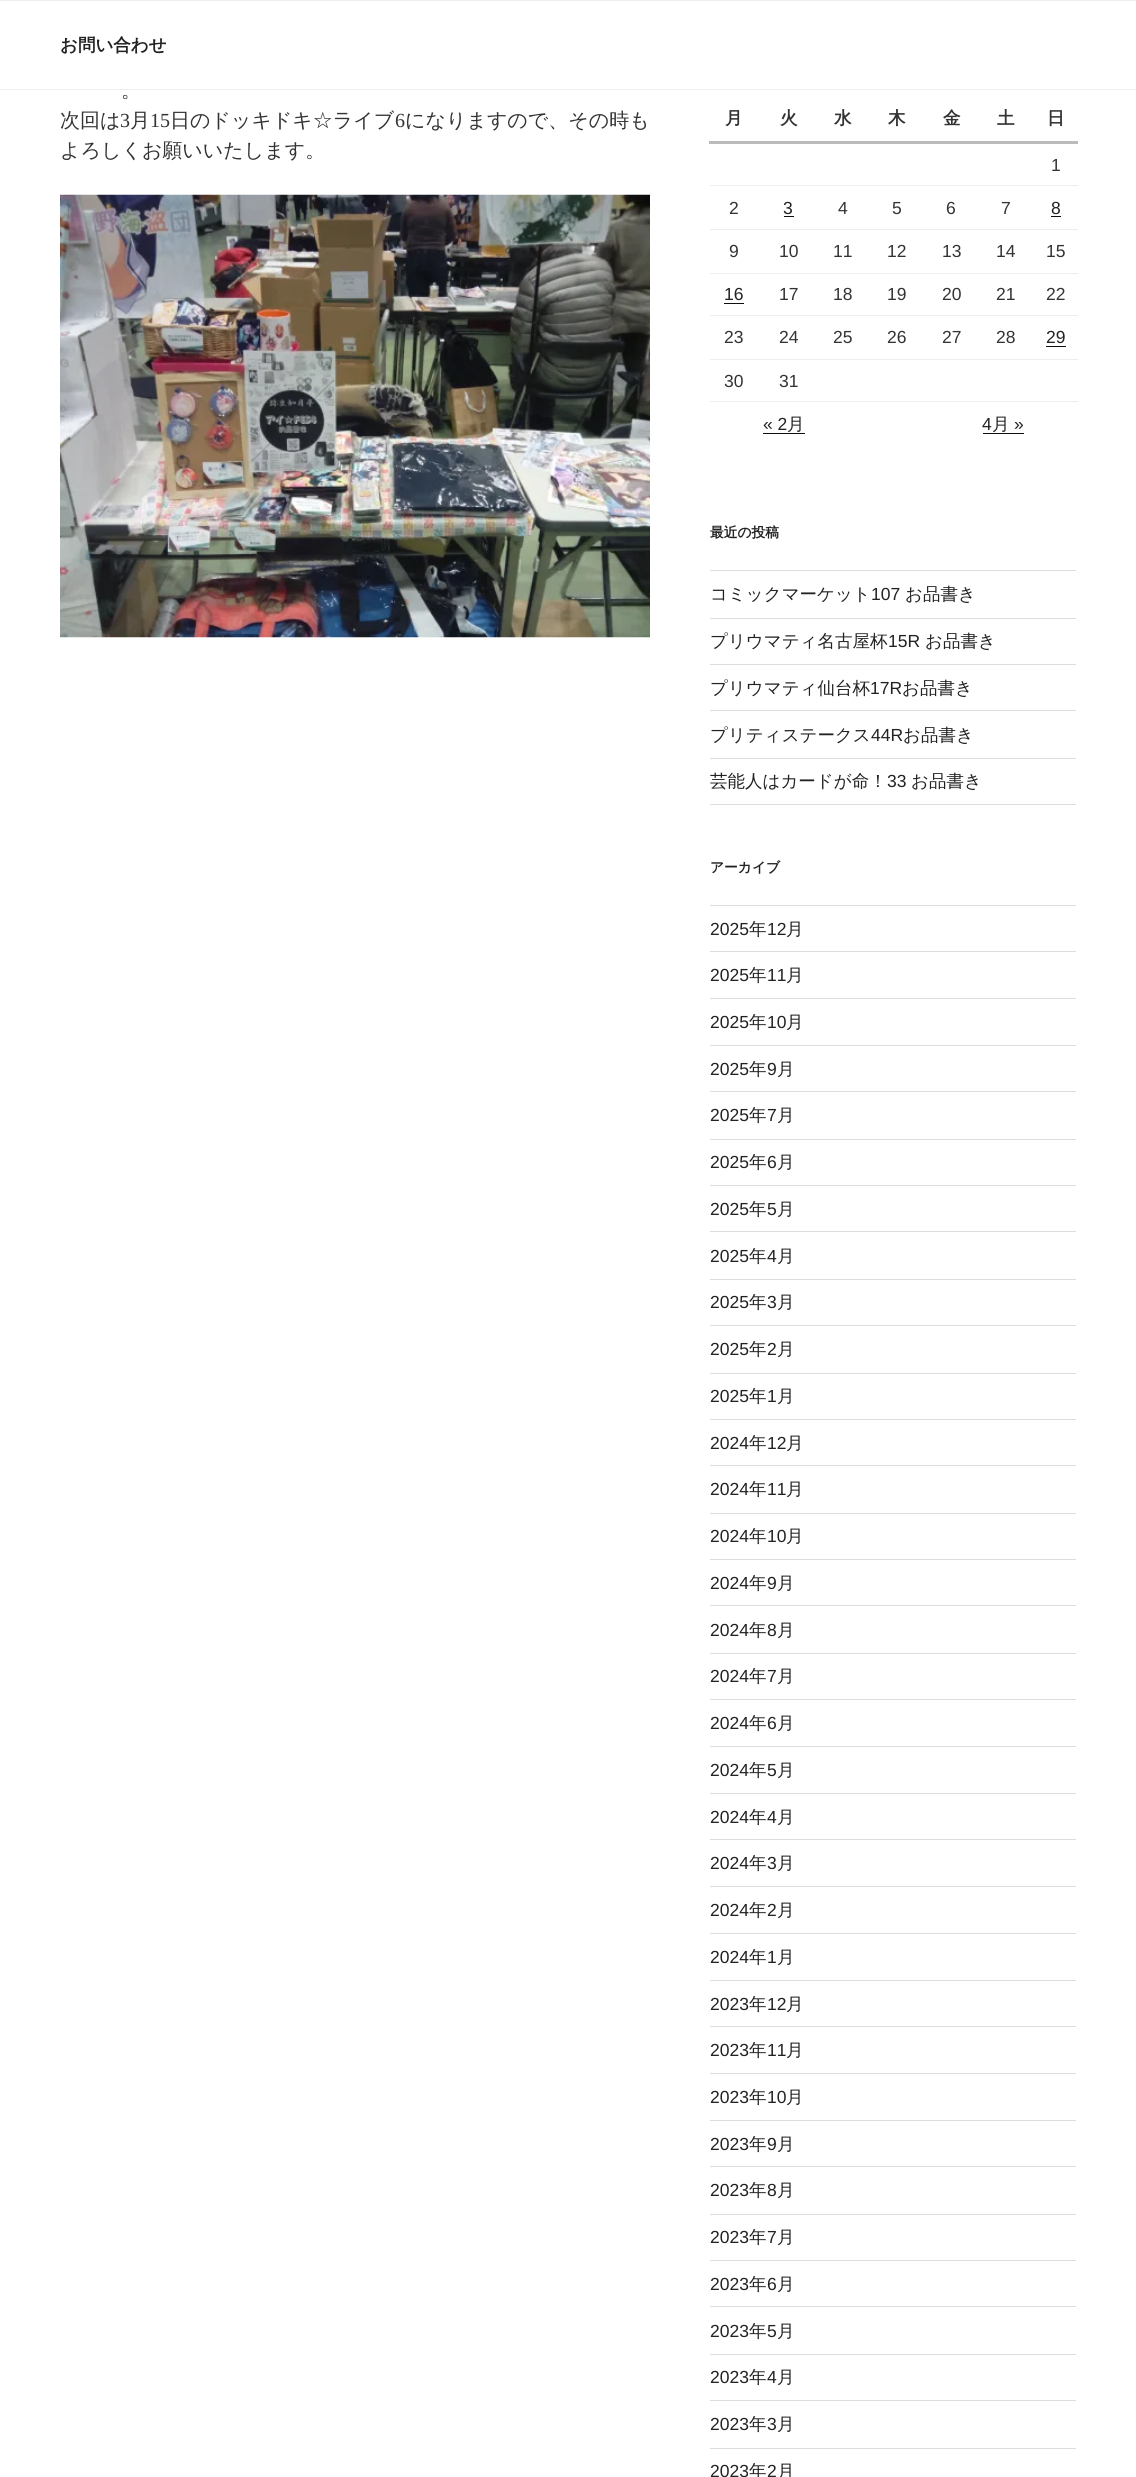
import math
import cairo


def use_color(cr, r, g, b):
  cr.set_source_rgb(r / 255, g / 255, b / 255)

def text(cr, x, y, s, family, size, color, bold=False, italic=False):
  cr.select_font_face(family, cairo.FONT_SLANT_ITALIC if italic else cairo.FONT_SLANT_NORMAL, cairo.FONT_WEIGHT_BOLD if bold else cairo.FONT_WEIGHT_NORMAL)
  cr.set_font_size(size)
  use_color(cr, *color)
  cr.move_to(x, y)
  cr.show_text(s)

def box(cr, x, y, w, h, *color):
  use_color(cr, *color)
  cr.rectangle(x, y, w, h)
  cr.fill()

def picture(cr, path, x, y, w, h):
  cr.save()
  cr.set_source_surface(cairo.ImageSurface.create_from_png(path), x, y)
  cr.rectangle(x, y, w, h)
  cr.fill()
  cr.restore()

def draw(cr):
  use_color(cr, 255, 255, 255)
  cr.paint()
  box(cr, 0, 0, 1136, 1, 238, 238, 238)
  box(cr, 0, 89, 1136, 1, 238, 238, 238)
  picture(cr, "img_01.png", 60, 194, 590, 444)
  box(cr, 709, 141, 369, 3, 187, 187, 187)
  box(cr, 710, 185, 368, 1, 238, 238, 238)
  box(cr, 710, 229, 368, 1, 238, 238, 238)
  box(cr, 784, 216, 10, 1, 15, 15, 15)
  box(cr, 1051, 216, 10, 1, 15, 15, 15)
  box(cr, 710, 273, 368, 1, 238, 238, 238)
  box(cr, 710, 315, 368, 1, 238, 238, 238)
  box(cr, 724, 303, 20, 1, 15, 15, 15)
  box(cr, 710, 359, 368, 1, 238, 238, 238)
  box(cr, 1046, 346, 20, 1, 15, 15, 15)
  box(cr, 710, 401, 368, 1, 238, 238, 238)
  box(cr, 763, 433, 42, 1, 15, 15, 15)
  box(cr, 983, 433, 41, 1, 15, 15, 15)
  box(cr, 710, 570, 366, 1, 221, 221, 221)
  box(cr, 710, 618, 366, 1, 221, 221, 221)
  box(cr, 710, 664, 366, 1, 221, 221, 221)
  box(cr, 710, 710, 366, 1, 221, 221, 221)
  box(cr, 710, 758, 366, 1, 221, 221, 221)
  box(cr, 710, 804, 366, 1, 221, 221, 221)
  box(cr, 710, 905, 366, 1, 221, 221, 221)
  box(cr, 710, 951, 366, 1, 221, 221, 221)
  box(cr, 710, 998, 366, 1, 221, 221, 221)
  box(cr, 710, 1045, 366, 1, 221, 221, 221)
  box(cr, 710, 1091, 366, 1, 221, 221, 221)
  box(cr, 710, 1139, 366, 1, 221, 221, 221)
  box(cr, 710, 1185, 366, 1, 221, 221, 221)
  box(cr, 710, 1231, 366, 1, 221, 221, 221)
  box(cr, 710, 1279, 366, 1, 221, 221, 221)
  box(cr, 710, 1325, 366, 1, 221, 221, 221)
  box(cr, 710, 1373, 366, 1, 221, 221, 221)
  box(cr, 710, 1419, 366, 1, 221, 221, 221)
  box(cr, 710, 1465, 366, 1, 221, 221, 221)
  box(cr, 710, 1513, 366, 1, 221, 221, 221)
  box(cr, 710, 1559, 366, 1, 221, 221, 221)
  box(cr, 710, 1605, 366, 1, 221, 221, 221)
  box(cr, 710, 1653, 366, 1, 221, 221, 221)
  box(cr, 710, 1699, 366, 1, 221, 221, 221)
  box(cr, 710, 1746, 366, 1, 221, 221, 221)
  box(cr, 710, 1793, 366, 1, 221, 221, 221)
  box(cr, 710, 1839, 366, 1, 221, 221, 221)
  box(cr, 710, 1886, 366, 1, 221, 221, 221)
  box(cr, 710, 1933, 366, 1, 221, 221, 221)
  box(cr, 710, 1980, 366, 1, 221, 221, 221)
  box(cr, 710, 2026, 366, 1, 221, 221, 221)
  box(cr, 710, 2073, 366, 1, 221, 221, 221)
  box(cr, 710, 2120, 366, 1, 221, 221, 221)
  box(cr, 710, 2166, 366, 1, 221, 221, 221)
  box(cr, 710, 2214, 366, 1, 221, 221, 221)
  box(cr, 710, 2260, 366, 1, 221, 221, 221)
  box(cr, 710, 2306, 366, 1, 221, 221, 221)
  box(cr, 710, 2354, 366, 1, 221, 221, 221)
  box(cr, 710, 2400, 366, 1, 221, 221, 221)
  box(cr, 710, 2448, 366, 1, 221, 221, 221)
  text(cr, 60, 51, "お問い合わせ", "WenQuanYi Zen Hei", 17.5, (34, 34, 34), bold=True)
  text(cr, 121, 97, "。", "WenQuanYi Zen Hei Medium", 20, (51, 51, 51))
  text(cr, 60, 127, "次回は", "WenQuanYi Zen Hei Medium", 20, (51, 51, 51))
  text(cr, 120, 127, "3", "Liberation Serif", 20, (51, 51, 51))
  text(cr, 130, 127, "月", "WenQuanYi Zen Hei Medium", 20, (51, 51, 51))
  text(cr, 150, 127, "15", "Liberation Serif", 20, (51, 51, 51))
  text(cr, 170, 127, "日のドッキドキ☆ライブ", "WenQuanYi Zen Hei Medium", 20, (51, 51, 51))
  text(cr, 395, 127, "6", "Liberation Serif", 20, (51, 51, 51))
  text(cr, 405, 127, "になりますので、その時も", "WenQuanYi Zen Hei Medium", 20, (51, 51, 51))
  text(cr, 60, 157, "よろしくお願いいたします。", "WenQuanYi Zen Hei Medium", 20, (51, 51, 51))
  text(cr, 725, 124, "月", "WenQuanYi Zen Hei", 17.5, (51, 51, 51), bold=True)
  text(cr, 780, 124, "火", "WenQuanYi Zen Hei", 17.5, (51, 51, 51), bold=True)
  text(cr, 834, 124, "水", "WenQuanYi Zen Hei", 17.5, (51, 51, 51), bold=True)
  text(cr, 888, 124, "木", "WenQuanYi Zen Hei", 17.5, (51, 51, 51), bold=True)
  text(cr, 943, 124, "金", "WenQuanYi Zen Hei", 17.5, (51, 51, 51), bold=True)
  text(cr, 997, 124, "土", "WenQuanYi Zen Hei", 17.5, (51, 51, 51), bold=True)
  text(cr, 1047, 124, "日", "WenQuanYi Zen Hei", 17.5, (51, 51, 51), bold=True)
  text(cr, 1051, 171, "1", "Liberation Sans", 17.5, (51, 51, 51))
  text(cr, 729, 214, "2", "Liberation Sans", 17.5, (51, 51, 51))
  text(cr, 783, 214, "3", "Liberation Sans", 17.5, (34, 34, 34))
  text(cr, 838, 214, "4", "Liberation Sans", 17.5, (51, 51, 51))
  text(cr, 892, 214, "5", "Liberation Sans", 17.5, (51, 51, 51))
  text(cr, 946, 214, "6", "Liberation Sans", 17.5, (51, 51, 51))
  text(cr, 1001, 214, "7", "Liberation Sans", 17.5, (51, 51, 51))
  text(cr, 1051, 214, "8", "Liberation Sans", 17.5, (34, 34, 34))
  text(cr, 729, 257, "9", "Liberation Sans", 17.5, (51, 51, 51))
  text(cr, 779, 257, "10", "Liberation Sans", 17.5, (51, 51, 51))
  text(cr, 833, 257, "11", "Liberation Sans", 17.5, (51, 51, 51))
  text(cr, 887, 257, "12", "Liberation Sans", 17.5, (51, 51, 51))
  text(cr, 942, 257, "13", "Liberation Sans", 17.5, (51, 51, 51))
  text(cr, 996, 257, "14", "Liberation Sans", 17.5, (51, 51, 51))
  text(cr, 1046, 257, "15", "Liberation Sans", 17.5, (51, 51, 51))
  text(cr, 724, 300, "16", "Liberation Sans", 17.5, (34, 34, 34))
  text(cr, 779, 300, "17", "Liberation Sans", 17.5, (51, 51, 51))
  text(cr, 833, 300, "18", "Liberation Sans", 17.5, (51, 51, 51))
  text(cr, 887, 300, "19", "Liberation Sans", 17.5, (51, 51, 51))
  text(cr, 942, 300, "20", "Liberation Sans", 17.5, (51, 51, 51))
  text(cr, 996, 300, "21", "Liberation Sans", 17.5, (51, 51, 51))
  text(cr, 1046, 300, "22", "Liberation Sans", 17.5, (51, 51, 51))
  text(cr, 724, 343, "23", "Liberation Sans", 17.5, (51, 51, 51))
  text(cr, 779, 343, "24", "Liberation Sans", 17.5, (51, 51, 51))
  text(cr, 833, 343, "25", "Liberation Sans", 17.5, (51, 51, 51))
  text(cr, 887, 343, "26", "Liberation Sans", 17.5, (51, 51, 51))
  text(cr, 942, 343, "27", "Liberation Sans", 17.5, (51, 51, 51))
  text(cr, 996, 343, "28", "Liberation Sans", 17.5, (51, 51, 51))
  text(cr, 1046, 343, "29", "Liberation Sans", 17.5, (34, 34, 34))
  text(cr, 724, 387, "30", "Liberation Sans", 17.5, (51, 51, 51))
  text(cr, 779, 387, "31", "Liberation Sans", 17.5, (51, 51, 51))
  text(cr, 763, 430, "« 2", "Liberation Sans", 17.5, (34, 34, 34))
  text(cr, 787, 430, "月", "WenQuanYi Zen Hei Medium", 17.5, (34, 34, 34))
  text(cr, 982, 430, "4", "Liberation Sans", 17.5, (34, 34, 34))
  text(cr, 992, 430, "月", "WenQuanYi Zen Hei Medium", 17.5, (34, 34, 34))
  text(cr, 1014, 430, "»", "Liberation Sans", 17.5, (34, 34, 34))
  text(cr, 710, 537, "最近の投稿", "WenQuanYi Zen Hei", 13.75, (34, 34, 34), bold=True)
  text(cr, 710, 600, "コミックマーケット", "WenQuanYi Zen Hei Medium", 17.5, (34, 34, 34))
  text(cr, 871, 600, "107", "Liberation Sans", 17.5, (34, 34, 34))
  text(cr, 905, 600, "お品書き", "WenQuanYi Zen Hei Medium", 17.5, (34, 34, 34))
  text(cr, 710, 647, "プリウマティ名古屋杯", "WenQuanYi Zen Hei Medium", 17.5, (34, 34, 34))
  text(cr, 888, 647, "15R", "Liberation Sans", 17.5, (34, 34, 34))
  text(cr, 925, 647, "お品書き", "WenQuanYi Zen Hei Medium", 17.5, (34, 34, 34))
  text(cr, 710, 694, "プリウマティ仙台杯", "WenQuanYi Zen Hei Medium", 17.5, (34, 34, 34))
  text(cr, 870, 694, "17R", "Liberation Sans", 17.5, (34, 34, 34))
  text(cr, 902, 694, "お品書き", "WenQuanYi Zen Hei Medium", 17.5, (34, 34, 34))
  text(cr, 710, 741, "プリティステークス", "WenQuanYi Zen Hei Medium", 17.5, (34, 34, 34))
  text(cr, 871, 741, "44R", "Liberation Sans", 17.5, (34, 34, 34))
  text(cr, 903, 741, "お品書き", "WenQuanYi Zen Hei Medium", 17.5, (34, 34, 34))
  text(cr, 710, 787, "芸能人はカードが命！", "WenQuanYi Zen Hei Medium", 17.5, (34, 34, 34))
  text(cr, 887, 787, "33", "Liberation Sans", 17.5, (34, 34, 34))
  text(cr, 911, 787, "お品書き", "WenQuanYi Zen Hei Medium", 17.5, (34, 34, 34))
  text(cr, 710, 872, "アーカイブ", "WenQuanYi Zen Hei", 13.75, (34, 34, 34), bold=True)
  text(cr, 710, 935, "2025", "Liberation Sans", 17.5, (34, 34, 34))
  text(cr, 749, 935, "年", "WenQuanYi Zen Hei Medium", 17.5, (34, 34, 34))
  text(cr, 767, 935, "12", "Liberation Sans", 17.5, (34, 34, 34))
  text(cr, 786, 935, "月", "WenQuanYi Zen Hei Medium", 17.5, (34, 34, 34))
  text(cr, 710, 981, "2025", "Liberation Sans", 17.5, (34, 34, 34))
  text(cr, 749, 981, "年", "WenQuanYi Zen Hei Medium", 17.5, (34, 34, 34))
  text(cr, 767, 981, "11", "Liberation Sans", 17.5, (34, 34, 34))
  text(cr, 786, 981, "月", "WenQuanYi Zen Hei Medium", 17.5, (34, 34, 34))
  text(cr, 710, 1028, "2025", "Liberation Sans", 17.5, (34, 34, 34))
  text(cr, 749, 1028, "年", "WenQuanYi Zen Hei Medium", 17.5, (34, 34, 34))
  text(cr, 767, 1028, "10", "Liberation Sans", 17.5, (34, 34, 34))
  text(cr, 786, 1028, "月", "WenQuanYi Zen Hei Medium", 17.5, (34, 34, 34))
  text(cr, 710, 1075, "2025", "Liberation Sans", 17.5, (34, 34, 34))
  text(cr, 749, 1075, "年", "WenQuanYi Zen Hei Medium", 17.5, (34, 34, 34))
  text(cr, 767, 1075, "9", "Liberation Sans", 17.5, (34, 34, 34))
  text(cr, 777, 1075, "月", "WenQuanYi Zen Hei Medium", 17.5, (34, 34, 34))
  text(cr, 710, 1121, "2025", "Liberation Sans", 17.5, (34, 34, 34))
  text(cr, 749, 1121, "年", "WenQuanYi Zen Hei Medium", 17.5, (34, 34, 34))
  text(cr, 767, 1121, "7", "Liberation Sans", 17.5, (34, 34, 34))
  text(cr, 777, 1121, "月", "WenQuanYi Zen Hei Medium", 17.5, (34, 34, 34))
  text(cr, 710, 1168, "2025", "Liberation Sans", 17.5, (34, 34, 34))
  text(cr, 749, 1168, "年", "WenQuanYi Zen Hei Medium", 17.5, (34, 34, 34))
  text(cr, 767, 1168, "6", "Liberation Sans", 17.5, (34, 34, 34))
  text(cr, 777, 1168, "月", "WenQuanYi Zen Hei Medium", 17.5, (34, 34, 34))
  text(cr, 710, 1215, "2025", "Liberation Sans", 17.5, (34, 34, 34))
  text(cr, 749, 1215, "年", "WenQuanYi Zen Hei Medium", 17.5, (34, 34, 34))
  text(cr, 767, 1215, "5", "Liberation Sans", 17.5, (34, 34, 34))
  text(cr, 777, 1215, "月", "WenQuanYi Zen Hei Medium", 17.5, (34, 34, 34))
  text(cr, 710, 1262, "2025", "Liberation Sans", 17.5, (34, 34, 34))
  text(cr, 749, 1262, "年", "WenQuanYi Zen Hei Medium", 17.5, (34, 34, 34))
  text(cr, 767, 1262, "4", "Liberation Sans", 17.5, (34, 34, 34))
  text(cr, 777, 1262, "月", "WenQuanYi Zen Hei Medium", 17.5, (34, 34, 34))
  text(cr, 710, 1308, "2025", "Liberation Sans", 17.5, (34, 34, 34))
  text(cr, 749, 1308, "年", "WenQuanYi Zen Hei Medium", 17.5, (34, 34, 34))
  text(cr, 767, 1308, "3", "Liberation Sans", 17.5, (34, 34, 34))
  text(cr, 777, 1308, "月", "WenQuanYi Zen Hei Medium", 17.5, (34, 34, 34))
  text(cr, 710, 1355, "2025", "Liberation Sans", 17.5, (34, 34, 34))
  text(cr, 749, 1355, "年", "WenQuanYi Zen Hei Medium", 17.5, (34, 34, 34))
  text(cr, 767, 1355, "2", "Liberation Sans", 17.5, (34, 34, 34))
  text(cr, 777, 1355, "月", "WenQuanYi Zen Hei Medium", 17.5, (34, 34, 34))
  text(cr, 710, 1402, "2025", "Liberation Sans", 17.5, (34, 34, 34))
  text(cr, 749, 1402, "年", "WenQuanYi Zen Hei Medium", 17.5, (34, 34, 34))
  text(cr, 767, 1402, "1", "Liberation Sans", 17.5, (34, 34, 34))
  text(cr, 777, 1402, "月", "WenQuanYi Zen Hei Medium", 17.5, (34, 34, 34))
  text(cr, 710, 1449, "2024", "Liberation Sans", 17.5, (34, 34, 34))
  text(cr, 749, 1449, "年", "WenQuanYi Zen Hei Medium", 17.5, (34, 34, 34))
  text(cr, 767, 1449, "12", "Liberation Sans", 17.5, (34, 34, 34))
  text(cr, 786, 1449, "月", "WenQuanYi Zen Hei Medium", 17.5, (34, 34, 34))
  text(cr, 710, 1495, "2024", "Liberation Sans", 17.5, (34, 34, 34))
  text(cr, 749, 1495, "年", "WenQuanYi Zen Hei Medium", 17.5, (34, 34, 34))
  text(cr, 767, 1495, "11", "Liberation Sans", 17.5, (34, 34, 34))
  text(cr, 786, 1495, "月", "WenQuanYi Zen Hei Medium", 17.5, (34, 34, 34))
  text(cr, 710, 1542, "2024", "Liberation Sans", 17.5, (34, 34, 34))
  text(cr, 749, 1542, "年", "WenQuanYi Zen Hei Medium", 17.5, (34, 34, 34))
  text(cr, 767, 1542, "10", "Liberation Sans", 17.5, (34, 34, 34))
  text(cr, 786, 1542, "月", "WenQuanYi Zen Hei Medium", 17.5, (34, 34, 34))
  text(cr, 710, 1589, "2024", "Liberation Sans", 17.5, (34, 34, 34))
  text(cr, 749, 1589, "年", "WenQuanYi Zen Hei Medium", 17.5, (34, 34, 34))
  text(cr, 767, 1589, "9", "Liberation Sans", 17.5, (34, 34, 34))
  text(cr, 777, 1589, "月", "WenQuanYi Zen Hei Medium", 17.5, (34, 34, 34))
  text(cr, 710, 1636, "2024", "Liberation Sans", 17.5, (34, 34, 34))
  text(cr, 749, 1636, "年", "WenQuanYi Zen Hei Medium", 17.5, (34, 34, 34))
  text(cr, 767, 1636, "8", "Liberation Sans", 17.5, (34, 34, 34))
  text(cr, 777, 1636, "月", "WenQuanYi Zen Hei Medium", 17.5, (34, 34, 34))
  text(cr, 710, 1682, "2024", "Liberation Sans", 17.5, (34, 34, 34))
  text(cr, 749, 1682, "年", "WenQuanYi Zen Hei Medium", 17.5, (34, 34, 34))
  text(cr, 767, 1682, "7", "Liberation Sans", 17.5, (34, 34, 34))
  text(cr, 777, 1682, "月", "WenQuanYi Zen Hei Medium", 17.5, (34, 34, 34))
  text(cr, 710, 1729, "2024", "Liberation Sans", 17.5, (34, 34, 34))
  text(cr, 749, 1729, "年", "WenQuanYi Zen Hei Medium", 17.5, (34, 34, 34))
  text(cr, 767, 1729, "6", "Liberation Sans", 17.5, (34, 34, 34))
  text(cr, 777, 1729, "月", "WenQuanYi Zen Hei Medium", 17.5, (34, 34, 34))
  text(cr, 710, 1776, "2024", "Liberation Sans", 17.5, (34, 34, 34))
  text(cr, 749, 1776, "年", "WenQuanYi Zen Hei Medium", 17.5, (34, 34, 34))
  text(cr, 767, 1776, "5", "Liberation Sans", 17.5, (34, 34, 34))
  text(cr, 777, 1776, "月", "WenQuanYi Zen Hei Medium", 17.5, (34, 34, 34))
  text(cr, 710, 1823, "2024", "Liberation Sans", 17.5, (34, 34, 34))
  text(cr, 749, 1823, "年", "WenQuanYi Zen Hei Medium", 17.5, (34, 34, 34))
  text(cr, 767, 1823, "4", "Liberation Sans", 17.5, (34, 34, 34))
  text(cr, 777, 1823, "月", "WenQuanYi Zen Hei Medium", 17.5, (34, 34, 34))
  text(cr, 710, 1869, "2024", "Liberation Sans", 17.5, (34, 34, 34))
  text(cr, 749, 1869, "年", "WenQuanYi Zen Hei Medium", 17.5, (34, 34, 34))
  text(cr, 767, 1869, "3", "Liberation Sans", 17.5, (34, 34, 34))
  text(cr, 777, 1869, "月", "WenQuanYi Zen Hei Medium", 17.5, (34, 34, 34))
  text(cr, 710, 1916, "2024", "Liberation Sans", 17.5, (34, 34, 34))
  text(cr, 749, 1916, "年", "WenQuanYi Zen Hei Medium", 17.5, (34, 34, 34))
  text(cr, 767, 1916, "2", "Liberation Sans", 17.5, (34, 34, 34))
  text(cr, 777, 1916, "月", "WenQuanYi Zen Hei Medium", 17.5, (34, 34, 34))
  text(cr, 710, 1963, "2024", "Liberation Sans", 17.5, (34, 34, 34))
  text(cr, 749, 1963, "年", "WenQuanYi Zen Hei Medium", 17.5, (34, 34, 34))
  text(cr, 767, 1963, "1", "Liberation Sans", 17.5, (34, 34, 34))
  text(cr, 777, 1963, "月", "WenQuanYi Zen Hei Medium", 17.5, (34, 34, 34))
  text(cr, 710, 2010, "2023", "Liberation Sans", 17.5, (34, 34, 34))
  text(cr, 749, 2010, "年", "WenQuanYi Zen Hei Medium", 17.5, (34, 34, 34))
  text(cr, 767, 2010, "12", "Liberation Sans", 17.5, (34, 34, 34))
  text(cr, 786, 2010, "月", "WenQuanYi Zen Hei Medium", 17.5, (34, 34, 34))
  text(cr, 710, 2056, "2023", "Liberation Sans", 17.5, (34, 34, 34))
  text(cr, 749, 2056, "年", "WenQuanYi Zen Hei Medium", 17.5, (34, 34, 34))
  text(cr, 767, 2056, "11", "Liberation Sans", 17.5, (34, 34, 34))
  text(cr, 786, 2056, "月", "WenQuanYi Zen Hei Medium", 17.5, (34, 34, 34))
  text(cr, 710, 2103, "2023", "Liberation Sans", 17.5, (34, 34, 34))
  text(cr, 749, 2103, "年", "WenQuanYi Zen Hei Medium", 17.5, (34, 34, 34))
  text(cr, 767, 2103, "10", "Liberation Sans", 17.5, (34, 34, 34))
  text(cr, 786, 2103, "月", "WenQuanYi Zen Hei Medium", 17.5, (34, 34, 34))
  text(cr, 710, 2150, "2023", "Liberation Sans", 17.5, (34, 34, 34))
  text(cr, 749, 2150, "年", "WenQuanYi Zen Hei Medium", 17.5, (34, 34, 34))
  text(cr, 767, 2150, "9", "Liberation Sans", 17.5, (34, 34, 34))
  text(cr, 777, 2150, "月", "WenQuanYi Zen Hei Medium", 17.5, (34, 34, 34))
  text(cr, 710, 2196, "2023", "Liberation Sans", 17.5, (34, 34, 34))
  text(cr, 749, 2196, "年", "WenQuanYi Zen Hei Medium", 17.5, (34, 34, 34))
  text(cr, 767, 2196, "8", "Liberation Sans", 17.5, (34, 34, 34))
  text(cr, 777, 2196, "月", "WenQuanYi Zen Hei Medium", 17.5, (34, 34, 34))
  text(cr, 710, 2243, "2023", "Liberation Sans", 17.5, (34, 34, 34))
  text(cr, 749, 2243, "年", "WenQuanYi Zen Hei Medium", 17.5, (34, 34, 34))
  text(cr, 767, 2243, "7", "Liberation Sans", 17.5, (34, 34, 34))
  text(cr, 777, 2243, "月", "WenQuanYi Zen Hei Medium", 17.5, (34, 34, 34))
  text(cr, 710, 2290, "2023", "Liberation Sans", 17.5, (34, 34, 34))
  text(cr, 749, 2290, "年", "WenQuanYi Zen Hei Medium", 17.5, (34, 34, 34))
  text(cr, 767, 2290, "6", "Liberation Sans", 17.5, (34, 34, 34))
  text(cr, 777, 2290, "月", "WenQuanYi Zen Hei Medium", 17.5, (34, 34, 34))
  text(cr, 710, 2337, "2023", "Liberation Sans", 17.5, (34, 34, 34))
  text(cr, 749, 2337, "年", "WenQuanYi Zen Hei Medium", 17.5, (34, 34, 34))
  text(cr, 767, 2337, "5", "Liberation Sans", 17.5, (34, 34, 34))
  text(cr, 777, 2337, "月", "WenQuanYi Zen Hei Medium", 17.5, (34, 34, 34))
  text(cr, 710, 2383, "2023", "Liberation Sans", 17.5, (34, 34, 34))
  text(cr, 749, 2383, "年", "WenQuanYi Zen Hei Medium", 17.5, (34, 34, 34))
  text(cr, 767, 2383, "4", "Liberation Sans", 17.5, (34, 34, 34))
  text(cr, 777, 2383, "月", "WenQuanYi Zen Hei Medium", 17.5, (34, 34, 34))
  text(cr, 710, 2430, "2023", "Liberation Sans", 17.5, (34, 34, 34))
  text(cr, 749, 2430, "年", "WenQuanYi Zen Hei Medium", 17.5, (34, 34, 34))
  text(cr, 767, 2430, "3", "Liberation Sans", 17.5, (34, 34, 34))
  text(cr, 777, 2430, "月", "WenQuanYi Zen Hei Medium", 17.5, (34, 34, 34))
  text(cr, 710, 2477, "2023", "Liberation Sans", 17.5, (34, 34, 34))
  text(cr, 749, 2477, "年", "WenQuanYi Zen Hei Medium", 17.5, (34, 34, 34))
  text(cr, 767, 2477, "2", "Liberation Sans", 17.5, (34, 34, 34))
  text(cr, 777, 2477, "月", "WenQuanYi Zen Hei Medium", 17.5, (34, 34, 34))


surface = cairo.ImageSurface(cairo.FORMAT_RGB24, 1136, 2477)
cr = cairo.Context(surface)
options = cairo.FontOptions()
options.set_hint_metrics(cairo.HINT_METRICS_OFF)
options.set_hint_style(cairo.HINT_STYLE_NONE)
cr.set_font_options(options)
cr.set_miter_limit(4)
draw(cr)
surface.write_to_png("out.png")
